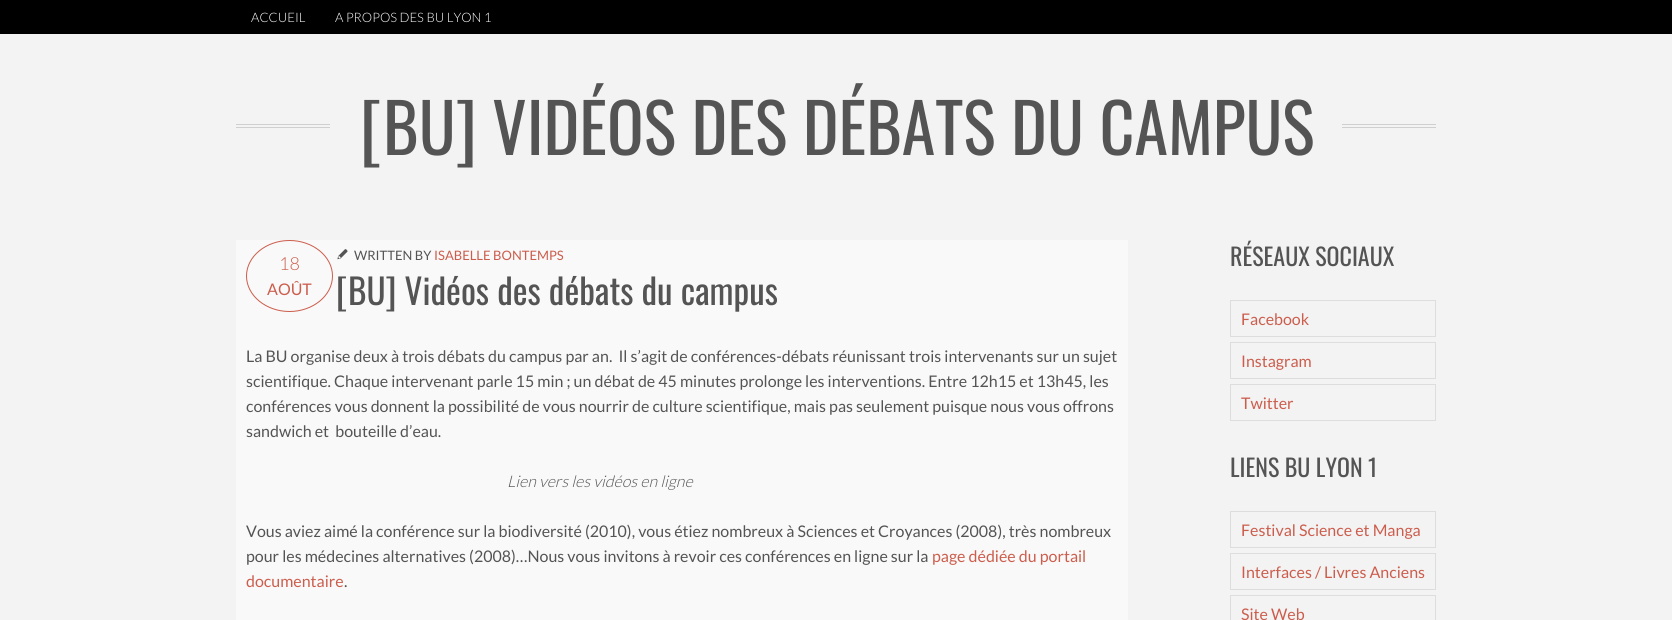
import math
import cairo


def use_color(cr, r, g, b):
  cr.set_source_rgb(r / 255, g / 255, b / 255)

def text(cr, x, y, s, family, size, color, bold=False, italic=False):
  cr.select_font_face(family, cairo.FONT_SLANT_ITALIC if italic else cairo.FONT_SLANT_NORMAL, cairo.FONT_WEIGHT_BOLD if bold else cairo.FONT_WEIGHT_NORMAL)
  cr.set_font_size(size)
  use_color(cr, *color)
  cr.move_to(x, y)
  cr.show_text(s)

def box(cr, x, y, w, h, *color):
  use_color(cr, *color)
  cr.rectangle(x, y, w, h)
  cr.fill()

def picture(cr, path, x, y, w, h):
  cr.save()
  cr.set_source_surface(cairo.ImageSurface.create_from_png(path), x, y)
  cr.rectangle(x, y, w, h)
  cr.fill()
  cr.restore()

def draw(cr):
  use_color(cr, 243, 243, 243)
  cr.paint()
  box(cr, 0, 0, 1672, 34, 0, 0, 0)
  box(cr, 236, 124, 94, 1, 207, 207, 207)
  box(cr, 236, 127, 94, 1, 207, 207, 207)
  box(cr, 1342, 124, 94, 1, 207, 207, 207)
  box(cr, 1342, 127, 94, 1, 207, 207, 207)
  box(cr, 236, 240, 892, 380, 249, 249, 249)
  picture(cr, "img_01.png", 337, 249, 11, 11)
  cr.new_path()
  cr.move_to(289.5, 240.5)
  cr.curve_to(313, 240.5, 332.5, 256.5, 332.5, 276)
  cr.curve_to(332.5, 295.5, 313, 311.5, 289.5, 311.5)
  cr.curve_to(266, 311.5, 246.5, 295.5, 246.5, 276)
  cr.curve_to(246.5, 256.5, 266, 240.5, 289.5, 240.5)
  cr.close_path()
  use_color(cr, 204, 93, 76)
  cr.set_line_width(1)
  cr.stroke()
  cr.rectangle(1230.5, 300.5, 205, 36)
  use_color(cr, 221, 221, 221)
  cr.stroke()
  cr.rectangle(1230.5, 342.5, 205, 36)
  cr.stroke()
  cr.rectangle(1230.5, 384.5, 205, 36)
  cr.stroke()
  cr.rectangle(1230.5, 511.5, 205, 36)
  cr.stroke()
  cr.rectangle(1230.5, 553.5, 205, 36)
  cr.stroke()
  cr.rectangle(1230.5, 595.5, 205, 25)
  cr.stroke()
  text(cr, 251, 22, "ACCUEIL", "Lato Light", 13, (255, 255, 255))
  text(cr, 335, 22, "A PROPOS DES BU LYON 1", "Lato Light", 13, (255, 255, 255))
  text(cr, 360, 155, "[BU] VIDÉOS DES DÉBATS DU CAMPUS", "Oswald", 68, (84, 84, 84))
  text(cr, 354, 260, "WRITTEN BY", "Lato", 13, (84, 84, 84))
  text(cr, 434, 260, "ISABELLE BONTEMPS", "Lato", 13, (204, 93, 76))
  text(cr, 279, 270, "18", "Lato Light", 18, (204, 93, 76))
  text(cr, 267, 295, "AOÛT", "Lato", 16, (204, 93, 76))
  text(cr, 336, 305, "[BU] Vidéos des débats du campus", "Oswald", 35.25, (84, 84, 84))
  text(cr, 246, 362, "La BU organise deux à trois débats du campus par an.  Il s’agit de conférences-débats réunissant trois intervenants sur un sujet", "Lato", 16, (84, 84, 84))
  text(cr, 246, 387, "scientifique. Chaque intervenant parle 15 min ; un débat de 45 minutes prolonge les interventions. Entre 12h15 et 13h45, les", "Lato", 16, (84, 84, 84))
  text(cr, 246, 412, "conférences vous donnent la possibilité de vous nourrir de culture scientifique, mais pas seulement puisque nous vous offrons", "Lato", 16, (84, 84, 84))
  text(cr, 246, 437, "sandwich et  bouteille d’eau.", "Lato", 16, (84, 84, 84))
  text(cr, 507, 487, "Lien vers les vidéos en ligne", "Lato Light", 16, (84, 84, 84), italic=True)
  text(cr, 246, 537, "Vous aviez aimé la conférence sur la biodiversité (2010), vous étiez nombreux à Sciences et Croyances (2008), très nombreux", "Lato", 16, (84, 84, 84))
  text(cr, 246, 562, "pour les médecines alternatives (2008)…Nous vous invitons à revoir ces conférences en ligne sur la", "Lato", 16, (84, 84, 84))
  text(cr, 932, 562, "page dédiée du portail", "Lato", 16, (204, 93, 76))
  text(cr, 246, 587, "documentaire", "Lato", 16, (204, 93, 76))
  text(cr, 344, 587, ".", "Lato", 16, (84, 84, 84))
  text(cr, 1230, 266, "RÉSEAUX SOCIAUX", "Oswald", 24, (84, 84, 84))
  text(cr, 1241, 325, "Facebook", "Lato", 16, (204, 93, 76))
  text(cr, 1241, 367, "Instagram", "Lato", 16, (204, 93, 76))
  text(cr, 1241, 409, "Twitter", "Lato", 16, (204, 93, 76))
  text(cr, 1230, 477, "LIENS BU LYON 1", "Oswald", 24, (84, 84, 84))
  text(cr, 1241, 536, "Festival Science et Manga", "Lato", 16, (204, 93, 76))
  text(cr, 1241, 578, "Interfaces / Livres Anciens", "Lato", 16, (204, 93, 76))
  text(cr, 1241, 620, "Site Web", "Lato", 16, (204, 93, 76))


surface = cairo.ImageSurface(cairo.FORMAT_RGB24, 1672, 620)
cr = cairo.Context(surface)
options = cairo.FontOptions()
options.set_hint_metrics(cairo.HINT_METRICS_OFF)
options.set_hint_style(cairo.HINT_STYLE_NONE)
cr.set_font_options(options)
cr.set_miter_limit(4)
draw(cr)
surface.write_to_png("out.png")
